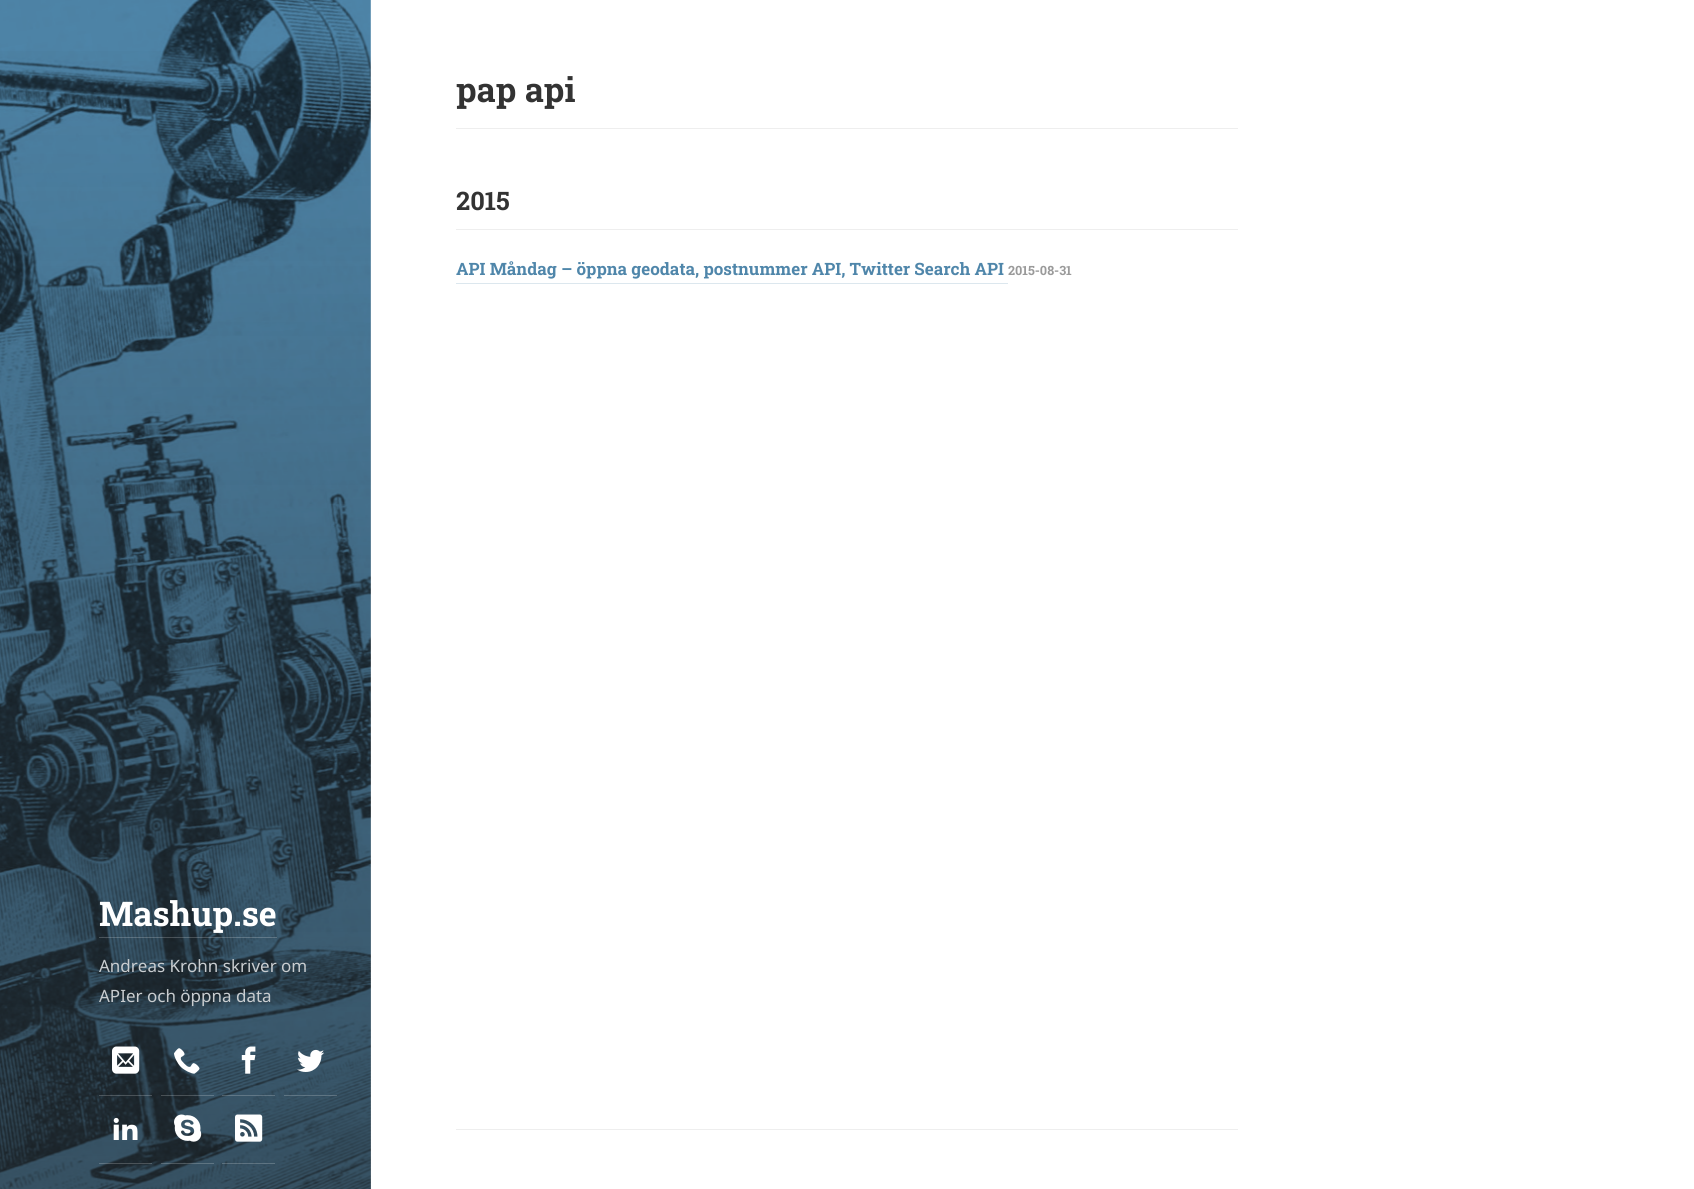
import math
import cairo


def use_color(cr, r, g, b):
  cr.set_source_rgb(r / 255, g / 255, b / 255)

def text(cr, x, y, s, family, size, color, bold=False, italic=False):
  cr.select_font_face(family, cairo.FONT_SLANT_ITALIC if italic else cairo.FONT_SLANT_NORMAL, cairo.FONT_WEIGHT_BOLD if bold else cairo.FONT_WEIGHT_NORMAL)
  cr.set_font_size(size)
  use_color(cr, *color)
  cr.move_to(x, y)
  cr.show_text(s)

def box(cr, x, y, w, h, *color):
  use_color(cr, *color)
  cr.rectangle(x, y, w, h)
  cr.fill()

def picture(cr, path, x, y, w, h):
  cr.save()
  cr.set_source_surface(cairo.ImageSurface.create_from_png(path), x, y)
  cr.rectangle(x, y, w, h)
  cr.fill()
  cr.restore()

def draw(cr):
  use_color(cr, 255, 255, 255)
  cr.paint()
  box(cr, 456, 128, 782, 1, 238, 238, 238)
  box(cr, 456, 229, 782, 1, 238, 238, 238)
  box(cr, 456, 283, 552, 1, 220, 231, 238)
  box(cr, 456, 1129, 782, 1, 238, 238, 238)
  picture(cr, "img_01.png", 0, 0, 371, 1189)
  gradient = cairo.LinearGradient(185, 0, 186, 1189)
  gradient.add_color_stop_rgba(0, 0.125, 0.125, 0.125, 0)
  gradient.add_color_stop_rgba(1, 0.125, 0.125, 0.125, 0.5)
  cr.set_source(gradient)
  cr.rectangle(0, 51, 371, 1138)
  cr.fill()
  cr.set_source_rgba(1, 1, 1, 0.2)
  cr.rectangle(99, 937, 178, 1)
  cr.fill()
  cr.rectangle(99, 1095, 53, 1)
  cr.fill()
  picture(cr, "img_02.png", 112, 1046, 28, 28)
  cr.rectangle(161, 1095, 53, 1)
  cr.fill()
  picture(cr, "img_03.png", 174, 1048, 26, 26)
  cr.rectangle(222, 1095, 53, 1)
  cr.fill()
  picture(cr, "img_04.png", 241, 1046, 15, 28)
  cr.rectangle(284, 1095, 53, 1)
  cr.fill()
  picture(cr, "img_05.png", 297, 1049, 27, 23)
  cr.rectangle(99, 1163, 53, 1)
  cr.fill()
  picture(cr, "img_06.png", 113, 1117, 25, 23)
  cr.rectangle(161, 1163, 53, 1)
  cr.fill()
  picture(cr, "img_07.png", 174, 1114, 28, 28)
  cr.rectangle(222, 1163, 53, 1)
  cr.fill()
  picture(cr, "img_08.png", 235, 1114, 28, 28)
  text(cr, 456, 102, "pap api", "Roboto Slab", 34, (51, 51, 51), bold=True)
  text(cr, 456, 210, "2015", "Roboto Slab", 25.5, (51, 51, 51), bold=True)
  text(cr, 456, 275, "API Måndag – öppna geodata, postnummer API, Twitter Search API", "Roboto Slab", 17, (79, 134, 170), bold=True)
  text(cr, 1008, 275, "2015-08-31", "Roboto Slab", 12.75, (154, 154, 154), bold=True)
  text(cr, 99, 926, "Mashup.se", "Roboto Slab", 34, (255, 255, 255), bold=True)
  text(cr, 99, 972, "Andreas Krohn skriver om", "Noto Sans", 17, (201, 205, 208))
  text(cr, 99, 1002, "APIer och öppna data", "Noto Sans", 17, (201, 205, 208))


surface = cairo.ImageSurface(cairo.FORMAT_RGB24, 1694, 1189)
cr = cairo.Context(surface)
options = cairo.FontOptions()
options.set_hint_metrics(cairo.HINT_METRICS_OFF)
options.set_hint_style(cairo.HINT_STYLE_NONE)
cr.set_font_options(options)
cr.set_miter_limit(4)
draw(cr)
surface.write_to_png("out.png")
